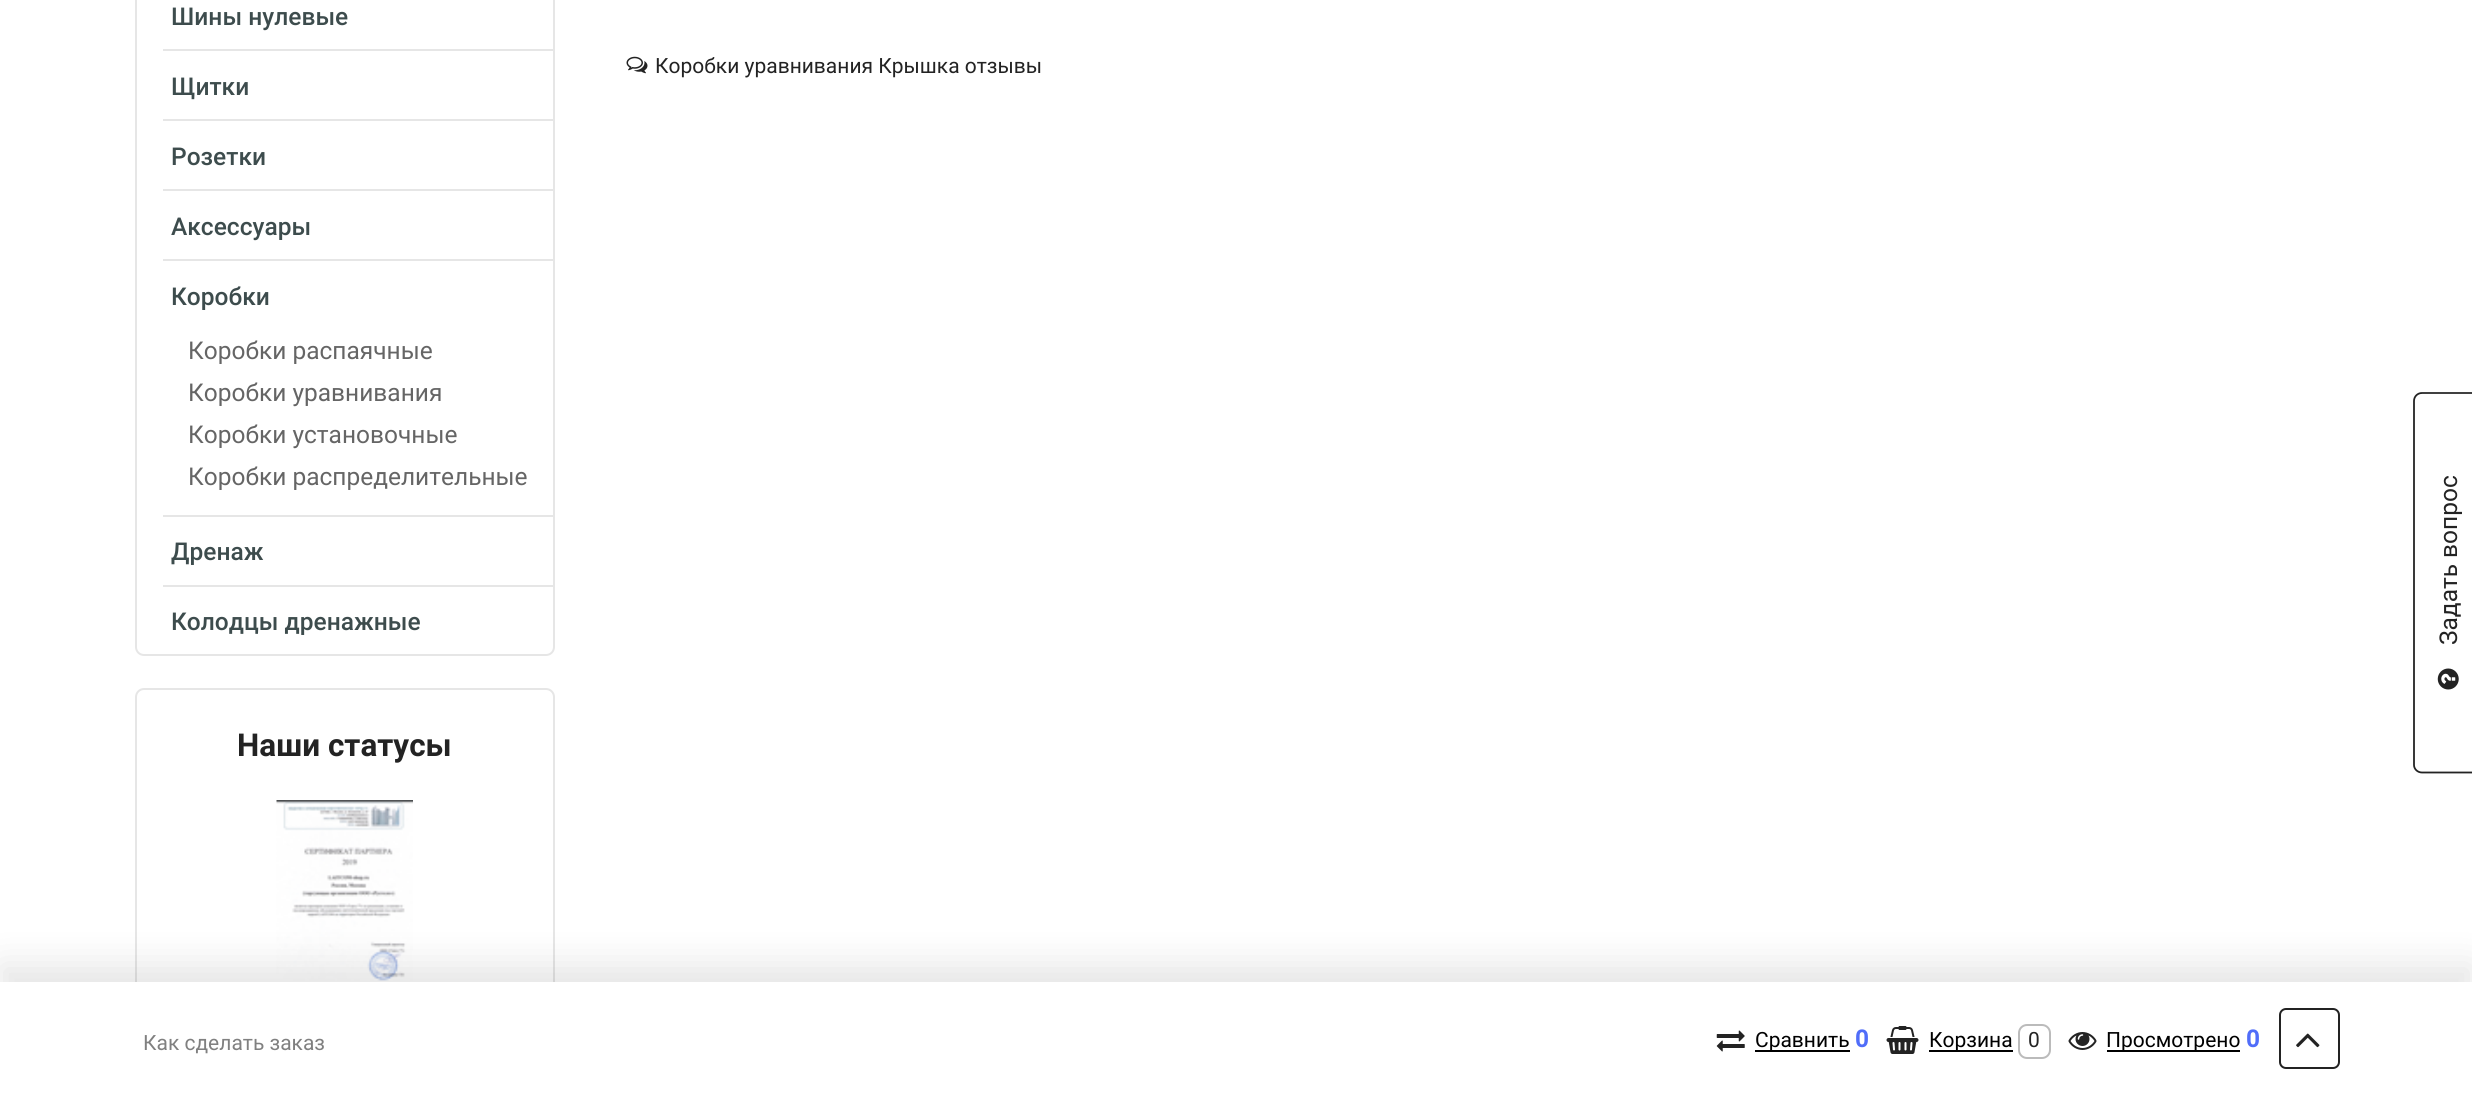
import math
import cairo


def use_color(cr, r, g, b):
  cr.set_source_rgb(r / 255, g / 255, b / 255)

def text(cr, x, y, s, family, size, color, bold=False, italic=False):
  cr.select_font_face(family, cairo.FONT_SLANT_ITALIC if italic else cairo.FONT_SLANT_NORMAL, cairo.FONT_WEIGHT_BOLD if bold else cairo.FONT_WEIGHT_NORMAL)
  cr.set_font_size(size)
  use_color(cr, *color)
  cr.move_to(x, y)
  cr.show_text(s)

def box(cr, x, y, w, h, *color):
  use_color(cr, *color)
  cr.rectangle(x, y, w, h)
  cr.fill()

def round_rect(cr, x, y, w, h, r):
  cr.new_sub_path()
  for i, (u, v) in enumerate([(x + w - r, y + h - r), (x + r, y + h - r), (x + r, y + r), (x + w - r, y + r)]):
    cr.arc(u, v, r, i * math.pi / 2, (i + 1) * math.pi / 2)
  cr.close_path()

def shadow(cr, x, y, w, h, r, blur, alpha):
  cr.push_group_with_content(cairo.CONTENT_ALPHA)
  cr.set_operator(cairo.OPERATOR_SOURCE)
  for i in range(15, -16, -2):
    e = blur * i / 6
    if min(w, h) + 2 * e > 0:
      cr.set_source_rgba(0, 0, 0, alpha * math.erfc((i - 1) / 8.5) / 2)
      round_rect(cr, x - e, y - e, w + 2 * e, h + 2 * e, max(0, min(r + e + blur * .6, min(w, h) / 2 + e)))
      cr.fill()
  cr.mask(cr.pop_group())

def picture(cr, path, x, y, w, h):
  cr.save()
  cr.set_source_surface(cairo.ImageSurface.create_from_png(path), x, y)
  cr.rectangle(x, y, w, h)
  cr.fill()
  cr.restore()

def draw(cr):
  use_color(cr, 255, 255, 255)
  cr.paint()
  cr.new_path()
  cr.move_to(136, -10)
  cr.line_to(554, -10)
  cr.line_to(554, 647)
  cr.curve_to(554, 651.5, 550.5, 655, 546, 655)
  cr.line_to(144, 655)
  cr.curve_to(139.5, 655, 136, 651.5, 136, 647)
  cr.close_path()
  use_color(cr, 230, 230, 230)
  cr.stroke()
  box(cr, 163, 49, 390, 2, 230, 230, 230)
  box(cr, 163, 119, 390, 2, 230, 230, 230)
  box(cr, 163, 189, 390, 2, 230, 230, 230)
  box(cr, 163, 259, 390, 2, 230, 230, 230)
  box(cr, 163, 515, 390, 2, 230, 230, 230)
  box(cr, 163, 585, 390, 2, 230, 230, 230)
  round_rect(cr, 136, 689, 418, 327, 8)
  cr.stroke()
  picture(cr, "img_01.png", 276, 800, 137, 181)
  picture(cr, "img_02.png", 626, 56, 22, 18)
  cr.new_path()
  cr.move_to(2414, 765)
  cr.line_to(2414, 401)
  cr.curve_to(2414, 396.5, 2417.5, 393, 2422, 393)
  cr.line_to(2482.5, 393)
  cr.line_to(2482.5, 772.5)
  cr.line_to(2422, 772.5)
  cr.curve_to(2417.5, 772.5, 2414, 769, 2414, 765)
  cr.close_path()
  use_color(cr, 35, 35, 35)
  cr.set_line_width(1.8)
  cr.stroke()
  picture(cr, "img_03.png", 2437, 668, 22, 22)
  use_color(cr, 0, 0, 0)
  shadow(cr, 0, 964, 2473, 114, 0, 17.5, 0.1)
  box(cr, 0, 982, 2472, 113, 255, 255, 255)
  picture(cr, "img_04.png", 1716, 1030, 29, 22)
  box(cr, 1755, 1050, 95, 2, 0, 0, 0)
  picture(cr, "img_05.png", 1886, 1026, 33, 28)
  box(cr, 1929, 1050, 84, 2, 0, 0, 0)
  round_rect(cr, 2019, 1025, 31, 33, 8)
  use_color(cr, 187, 187, 187)
  cr.set_line_width(2)
  cr.stroke()
  picture(cr, "img_06.png", 2068, 1032, 29, 18)
  box(cr, 2107, 1050, 133, 2, 0, 0, 0)
  round_rect(cr, 2280, 1009, 59, 59, 6)
  use_color(cr, 35, 35, 35)
  cr.stroke()
  picture(cr, "img_07.png", 2296, 1033, 24, 15)
  text(cr, 171, 25, "Шины нулевые", "Roboto Medium", 24.5, (61, 76, 77))
  text(cr, 171, 95, "Щитки", "Roboto Medium", 24.5, (61, 76, 77))
  text(cr, 171, 165, "Розетки", "Roboto Medium", 24.5, (61, 76, 77))
  text(cr, 171, 235, "Аксессуары", "Roboto Medium", 24.5, (61, 76, 77))
  text(cr, 171, 305, "Коробки", "Roboto Medium", 24.5, (61, 76, 77))
  text(cr, 188, 359, "Коробки распаячные", "Roboto", 24.5, (101, 101, 101))
  text(cr, 188, 401, "Коробки уравнивания", "Roboto", 24.5, (101, 101, 101))
  text(cr, 188, 443, "Коробки установочные", "Roboto", 24.5, (101, 101, 101))
  text(cr, 188, 485, "Коробки распределительные", "Roboto", 24.5, (101, 101, 101))
  text(cr, 171, 560, "Дренаж", "Roboto Medium", 24.5, (61, 76, 77))
  text(cr, 171, 630, "Колодцы дренажные", "Roboto Medium", 24.5, (61, 76, 77))
  text(cr, 237, 756, "Наши статусы", "Roboto", 31.5, (35, 35, 35), bold=True)
  text(cr, 655, 73, "Коробки уравнивания Крышка отзывы", "Roboto", 21, (35, 35, 35))
  cr.save()
  cr.translate(2457, 645)
  cr.rotate(-90 * math.pi / 180)
  text(cr, 0, 0, "Задать вопрос", "Roboto", 24.5, (35, 35, 35))
  cr.restore()
  text(cr, 143, 1050, "Как сделать заказ", "Roboto", 21, (128, 128, 128))
  text(cr, 1755, 1047, "Сравнить", "Roboto", 21, (0, 0, 0))
  text(cr, 1855, 1047, "0", "Roboto", 24.5, (80, 109, 249), bold=True)
  text(cr, 1929, 1047, "Корзина", "Roboto", 21, (0, 0, 0))
  text(cr, 2028, 1047, "0", "Roboto", 21, (35, 35, 35))
  text(cr, 2106, 1047, "Просмотрено", "Roboto", 21, (0, 0, 0))
  text(cr, 2246, 1047, "0", "Roboto", 24.5, (80, 109, 249), bold=True)


surface = cairo.ImageSurface(cairo.FORMAT_RGB24, 2472, 1095)
cr = cairo.Context(surface)
options = cairo.FontOptions()
options.set_hint_metrics(cairo.HINT_METRICS_OFF)
options.set_hint_style(cairo.HINT_STYLE_NONE)
cr.set_font_options(options)
cr.set_miter_limit(4)
draw(cr)
surface.write_to_png("out.png")
